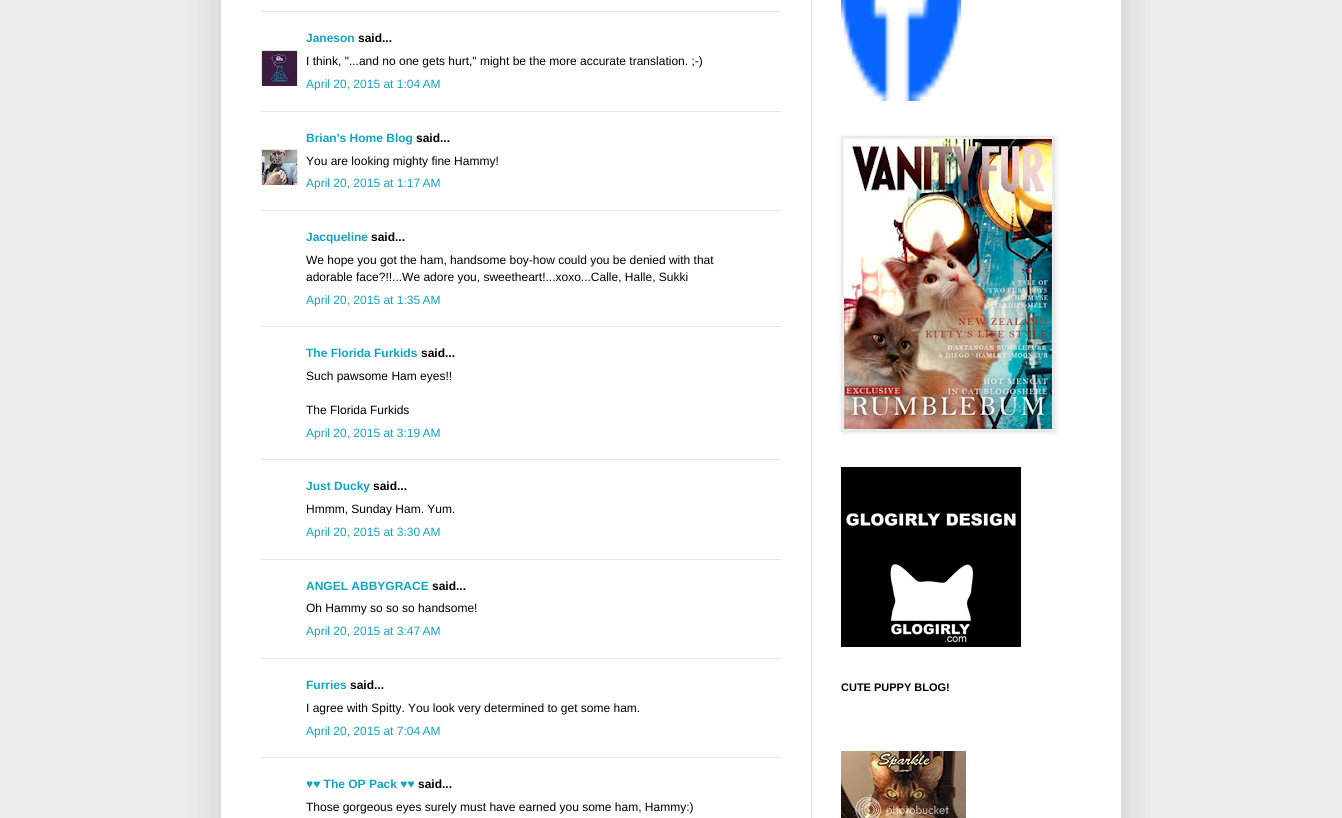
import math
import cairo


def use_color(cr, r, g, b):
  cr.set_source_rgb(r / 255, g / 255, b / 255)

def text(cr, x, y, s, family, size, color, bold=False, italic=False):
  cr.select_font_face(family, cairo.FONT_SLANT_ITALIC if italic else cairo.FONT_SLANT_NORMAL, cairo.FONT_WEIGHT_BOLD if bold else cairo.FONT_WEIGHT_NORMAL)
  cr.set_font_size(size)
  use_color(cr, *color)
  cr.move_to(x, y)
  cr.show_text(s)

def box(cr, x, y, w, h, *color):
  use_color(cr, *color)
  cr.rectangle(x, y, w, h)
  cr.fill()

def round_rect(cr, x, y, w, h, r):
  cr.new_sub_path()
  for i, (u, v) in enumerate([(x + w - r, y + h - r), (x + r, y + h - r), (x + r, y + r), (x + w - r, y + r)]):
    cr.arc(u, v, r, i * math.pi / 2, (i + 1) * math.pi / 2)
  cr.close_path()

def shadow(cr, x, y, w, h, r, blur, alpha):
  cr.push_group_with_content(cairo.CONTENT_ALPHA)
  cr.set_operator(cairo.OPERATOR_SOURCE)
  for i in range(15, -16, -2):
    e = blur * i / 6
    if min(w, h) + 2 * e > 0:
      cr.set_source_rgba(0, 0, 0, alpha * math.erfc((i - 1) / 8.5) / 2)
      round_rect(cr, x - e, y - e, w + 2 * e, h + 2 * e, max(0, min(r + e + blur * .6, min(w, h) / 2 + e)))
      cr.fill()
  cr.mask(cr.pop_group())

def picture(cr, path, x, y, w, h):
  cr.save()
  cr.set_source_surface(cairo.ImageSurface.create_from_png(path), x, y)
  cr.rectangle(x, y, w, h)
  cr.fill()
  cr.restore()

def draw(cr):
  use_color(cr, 237, 237, 237)
  cr.paint()
  use_color(cr, 0, 0, 0)
  shadow(cr, 221, -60, 900, 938, 0, 20, 0.15)
  box(cr, 221, 0, 900, 818, 255, 255, 255)
  box(cr, 811, 0, 1, 818, 230, 230, 230)
  box(cr, 261, 11, 520, 1, 230, 230, 230)
  cr.save()
  cr.rectangle(261, 50, 37, 36)
  cr.clip()
  cr.rectangle(261.5, 50.5, 36, 36)
  cr.set_line_width(1)
  cr.stroke()
  cr.restore()
  picture(cr, "img_01.png", 262, 51, 35, 35)
  box(cr, 261, 111, 520, 1, 230, 230, 230)
  cr.save()
  cr.rectangle(261, 149, 37, 36)
  cr.clip()
  cr.rectangle(261.5, 149.5, 36, 36)
  cr.set_line_width(1)
  cr.stroke()
  cr.restore()
  picture(cr, "img_02.png", 262, 150, 35, 35)
  box(cr, 261, 210, 520, 1, 230, 230, 230)
  box(cr, 261, 326, 520, 1, 230, 230, 230)
  box(cr, 261, 459, 520, 1, 230, 230, 230)
  box(cr, 261, 559, 520, 1, 230, 230, 230)
  box(cr, 261, 658, 520, 1, 230, 230, 230)
  box(cr, 261, 757, 520, 1, 230, 230, 230)
  picture(cr, "img_03.png", 841, 0, 120, 101)
  use_color(cr, 0, 0, 0)
  shadow(cr, 842, 137, 214, 296, 0, 2.5, 0.1)
  cr.rectangle(841.5, 136.5, 213, 295)
  use_color(cr, 230, 230, 230)
  cr.set_line_width(1)
  cr.stroke()
  picture(cr, "img_04.png", 844, 139, 208, 290)
  picture(cr, "img_05.png", 841, 467, 180, 180)
  picture(cr, "img_06.png", 841, 751, 125, 67)
  text(cr, 306, 42, "Janeson", "Liberation Sans", 12, (17, 164, 195), bold=True)
  text(cr, 358, 42, "said...", "Liberation Sans", 12, (0, 0, 0), bold=True)
  text(cr, 306, 65, "I think, \"...and no one gets hurt,\" might be the more accurate translation. ;-)", "Liberation Sans", 12, (0, 0, 0))
  text(cr, 306, 88, "April 20, 2015 at 1:04 AM", "Liberation Sans", 12, (17, 164, 195))
  text(cr, 306, 142, "Brian's Home Blog", "Liberation Sans", 12, (17, 164, 195), bold=True)
  text(cr, 416, 142, "said...", "Liberation Sans", 12, (0, 0, 0), bold=True)
  text(cr, 306, 165, "You are looking mighty fine Hammy!", "Liberation Sans", 12, (0, 0, 0))
  text(cr, 306, 187, "April 20, 2015 at 1:17 AM", "Liberation Sans", 12, (17, 164, 195))
  text(cr, 306, 241, "Jacqueline", "Liberation Sans", 12, (17, 164, 195), bold=True)
  text(cr, 371, 241, "said...", "Liberation Sans", 12, (0, 0, 0), bold=True)
  text(cr, 306, 264, "We hope you got the ham, handsome boy-how could you be denied with that", "Liberation Sans", 12, (0, 0, 0))
  text(cr, 306, 281, "adorable face?!!...We adore you, sweetheart!...xoxo...Calle, Halle, Sukki", "Liberation Sans", 12, (0, 0, 0))
  text(cr, 306, 304, "April 20, 2015 at 1:35 AM", "Liberation Sans", 12, (17, 164, 195))
  text(cr, 306, 357, "The Florida Furkids", "Liberation Sans", 12, (17, 164, 195), bold=True)
  text(cr, 421, 357, "said...", "Liberation Sans", 12, (0, 0, 0), bold=True)
  text(cr, 306, 380, "Such pawsome Ham eyes!!", "Liberation Sans", 12, (0, 0, 0))
  text(cr, 306, 414, "The Florida Furkids", "Liberation Sans", 12, (0, 0, 0))
  text(cr, 306, 437, "April 20, 2015 at 3:19 AM", "Liberation Sans", 12, (17, 164, 195))
  text(cr, 306, 490, "Just Ducky", "Liberation Sans", 12, (17, 164, 195), bold=True)
  text(cr, 373, 490, "said...", "Liberation Sans", 12, (0, 0, 0), bold=True)
  text(cr, 306, 513, "Hmmm, Sunday Ham. Yum.", "Liberation Sans", 12, (0, 0, 0))
  text(cr, 306, 536, "April 20, 2015 at 3:30 AM", "Liberation Sans", 12, (17, 164, 195))
  text(cr, 306, 590, "ANGEL ABBYGRACE", "Liberation Sans", 12, (17, 164, 195), bold=True)
  text(cr, 432, 590, "said...", "Liberation Sans", 12, (0, 0, 0), bold=True)
  text(cr, 306, 612, "Oh Hammy so so so handsome!", "Liberation Sans", 12, (0, 0, 0))
  text(cr, 306, 635, "April 20, 2015 at 3:47 AM", "Liberation Sans", 12, (17, 164, 195))
  text(cr, 306, 689, "Furries", "Liberation Sans", 12, (17, 164, 195), bold=True)
  text(cr, 350, 689, "said...", "Liberation Sans", 12, (0, 0, 0), bold=True)
  text(cr, 306, 712, "I agree with Spitty. You look very determined to get some ham.", "Liberation Sans", 12, (0, 0, 0))
  text(cr, 306, 735, "April 20, 2015 at 7:04 AM", "Liberation Sans", 12, (17, 164, 195))
  text(cr, 306, 788, "♥♥ The OP Pack ♥♥", "Liberation Sans", 12, (17, 164, 195), bold=True)
  text(cr, 418, 788, "said...", "Liberation Sans", 12, (0, 0, 0), bold=True)
  text(cr, 306, 811, "Those gorgeous eyes surely must have earned you some ham, Hammy:)", "Liberation Sans", 12, (0, 0, 0))
  text(cr, 841, 691, "CUTE PUPPY BLOG!", "Liberation Sans", 11, (0, 0, 0), bold=True)


surface = cairo.ImageSurface(cairo.FORMAT_RGB24, 1342, 818)
cr = cairo.Context(surface)
options = cairo.FontOptions()
options.set_hint_metrics(cairo.HINT_METRICS_OFF)
options.set_hint_style(cairo.HINT_STYLE_NONE)
cr.set_font_options(options)
cr.set_miter_limit(4)
draw(cr)
surface.write_to_png("out.png")
